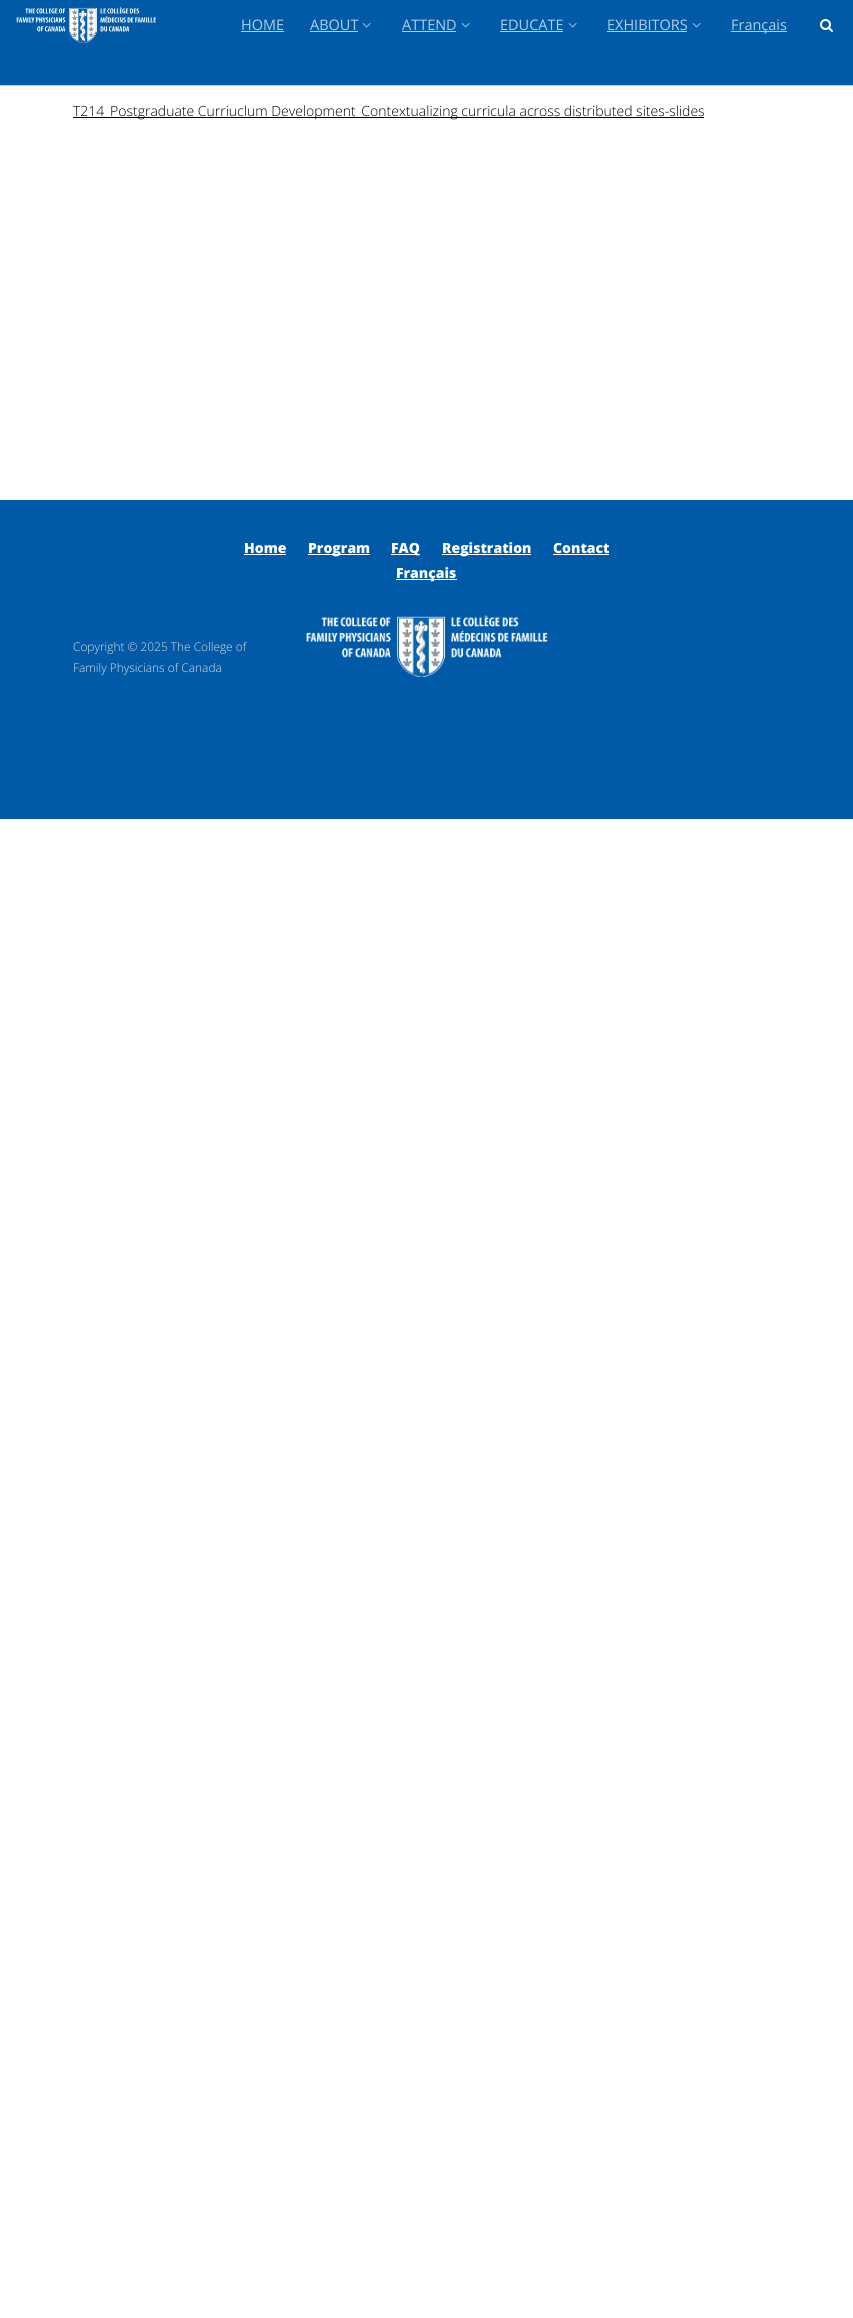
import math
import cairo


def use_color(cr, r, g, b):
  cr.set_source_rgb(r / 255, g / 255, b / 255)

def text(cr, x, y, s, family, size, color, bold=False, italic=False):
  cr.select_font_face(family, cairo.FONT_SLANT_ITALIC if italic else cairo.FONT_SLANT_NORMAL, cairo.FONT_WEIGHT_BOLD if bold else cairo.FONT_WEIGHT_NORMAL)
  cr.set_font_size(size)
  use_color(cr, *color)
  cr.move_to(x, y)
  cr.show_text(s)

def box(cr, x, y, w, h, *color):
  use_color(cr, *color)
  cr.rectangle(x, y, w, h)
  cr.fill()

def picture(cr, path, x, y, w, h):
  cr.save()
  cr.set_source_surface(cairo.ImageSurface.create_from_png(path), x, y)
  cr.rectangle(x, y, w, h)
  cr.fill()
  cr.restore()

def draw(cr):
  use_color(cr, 255, 255, 255)
  cr.paint()
  box(cr, 0, 85, 853, 1, 204, 204, 204)
  box(cr, 0, 0, 853, 85, 0, 90, 168)
  picture(cr, "img_01.png", 16, 7, 140, 36)
  box(cr, 241, 31, 43, 1, 179, 206, 229)
  box(cr, 310, 31, 48, 1, 179, 206, 229)
  picture(cr, "img_02.png", 362, 23, 9, 5)
  box(cr, 402, 31, 54, 1, 179, 206, 229)
  picture(cr, "img_02.png", 461, 23, 9, 5)
  box(cr, 500, 31, 63, 1, 179, 206, 229)
  picture(cr, "img_02.png", 568, 23, 9, 5)
  box(cr, 607, 31, 80, 1, 179, 206, 229)
  picture(cr, "img_02.png", 692, 23, 9, 5)
  box(cr, 731, 31, 56, 1, 179, 206, 229)
  picture(cr, "img_03.png", 820, 19, 13, 13)
  box(cr, 73, 117, 631, 1, 0, 0, 0)
  box(cr, 0, 500, 853, 319, 0, 90, 168)
  box(cr, 244, 554, 42, 1, 255, 255, 255)
  box(cr, 308, 554, 62, 1, 255, 255, 255)
  box(cr, 391, 554, 29, 1, 255, 255, 255)
  box(cr, 442, 554, 89, 1, 255, 255, 255)
  box(cr, 553, 554, 56, 1, 255, 255, 255)
  box(cr, 396, 579, 61, 1, 255, 255, 255)
  picture(cr, "img_04.png", 306, 615, 242, 62)
  text(cr, 241, 30, "HOME", "Open Sans", 14.5, (179, 206, 229))
  text(cr, 310, 30, "ABOUT", "Open Sans", 14.5, (179, 206, 229))
  text(cr, 402, 30, "ATTEND", "Open Sans", 14.5, (179, 206, 229))
  text(cr, 500, 30, "EDUCATE", "Open Sans", 14.5, (179, 206, 229))
  text(cr, 607, 30, "EXHIBITORS", "Open Sans", 14.5, (179, 206, 229))
  text(cr, 731, 30, "Français", "Open Sans", 14.5, (179, 206, 229))
  text(cr, 73, 116, "T214_Postgraduate Curriuclum Development_Contextualizing curricula across distributed sites-slides", "Open Sans Light", 14, (0, 0, 0))
  text(cr, 244, 553, "Home", "Open Sans ExtraBold", 14, (255, 255, 255))
  text(cr, 308, 553, "Program", "Open Sans ExtraBold", 14, (255, 255, 255))
  text(cr, 391, 553, "FAQ", "Open Sans ExtraBold", 14, (255, 255, 255))
  text(cr, 442, 553, "Registration", "Open Sans ExtraBold", 14, (255, 255, 255))
  text(cr, 553, 553, "Contact", "Open Sans ExtraBold", 14, (255, 255, 255))
  text(cr, 396, 578, "Français", "Open Sans ExtraBold", 14, (255, 255, 255))
  text(cr, 73, 651, "Copyright © 2025 The College of", "Open Sans Light", 11.9, (221, 221, 221))
  text(cr, 73, 672, "Family Physicians of Canada", "Open Sans Light", 11.9, (221, 221, 221))


surface = cairo.ImageSurface(cairo.FORMAT_RGB24, 853, 2318)
cr = cairo.Context(surface)
options = cairo.FontOptions()
options.set_hint_metrics(cairo.HINT_METRICS_OFF)
options.set_hint_style(cairo.HINT_STYLE_NONE)
cr.set_font_options(options)
cr.set_miter_limit(4)
draw(cr)
surface.write_to_png("out.png")
